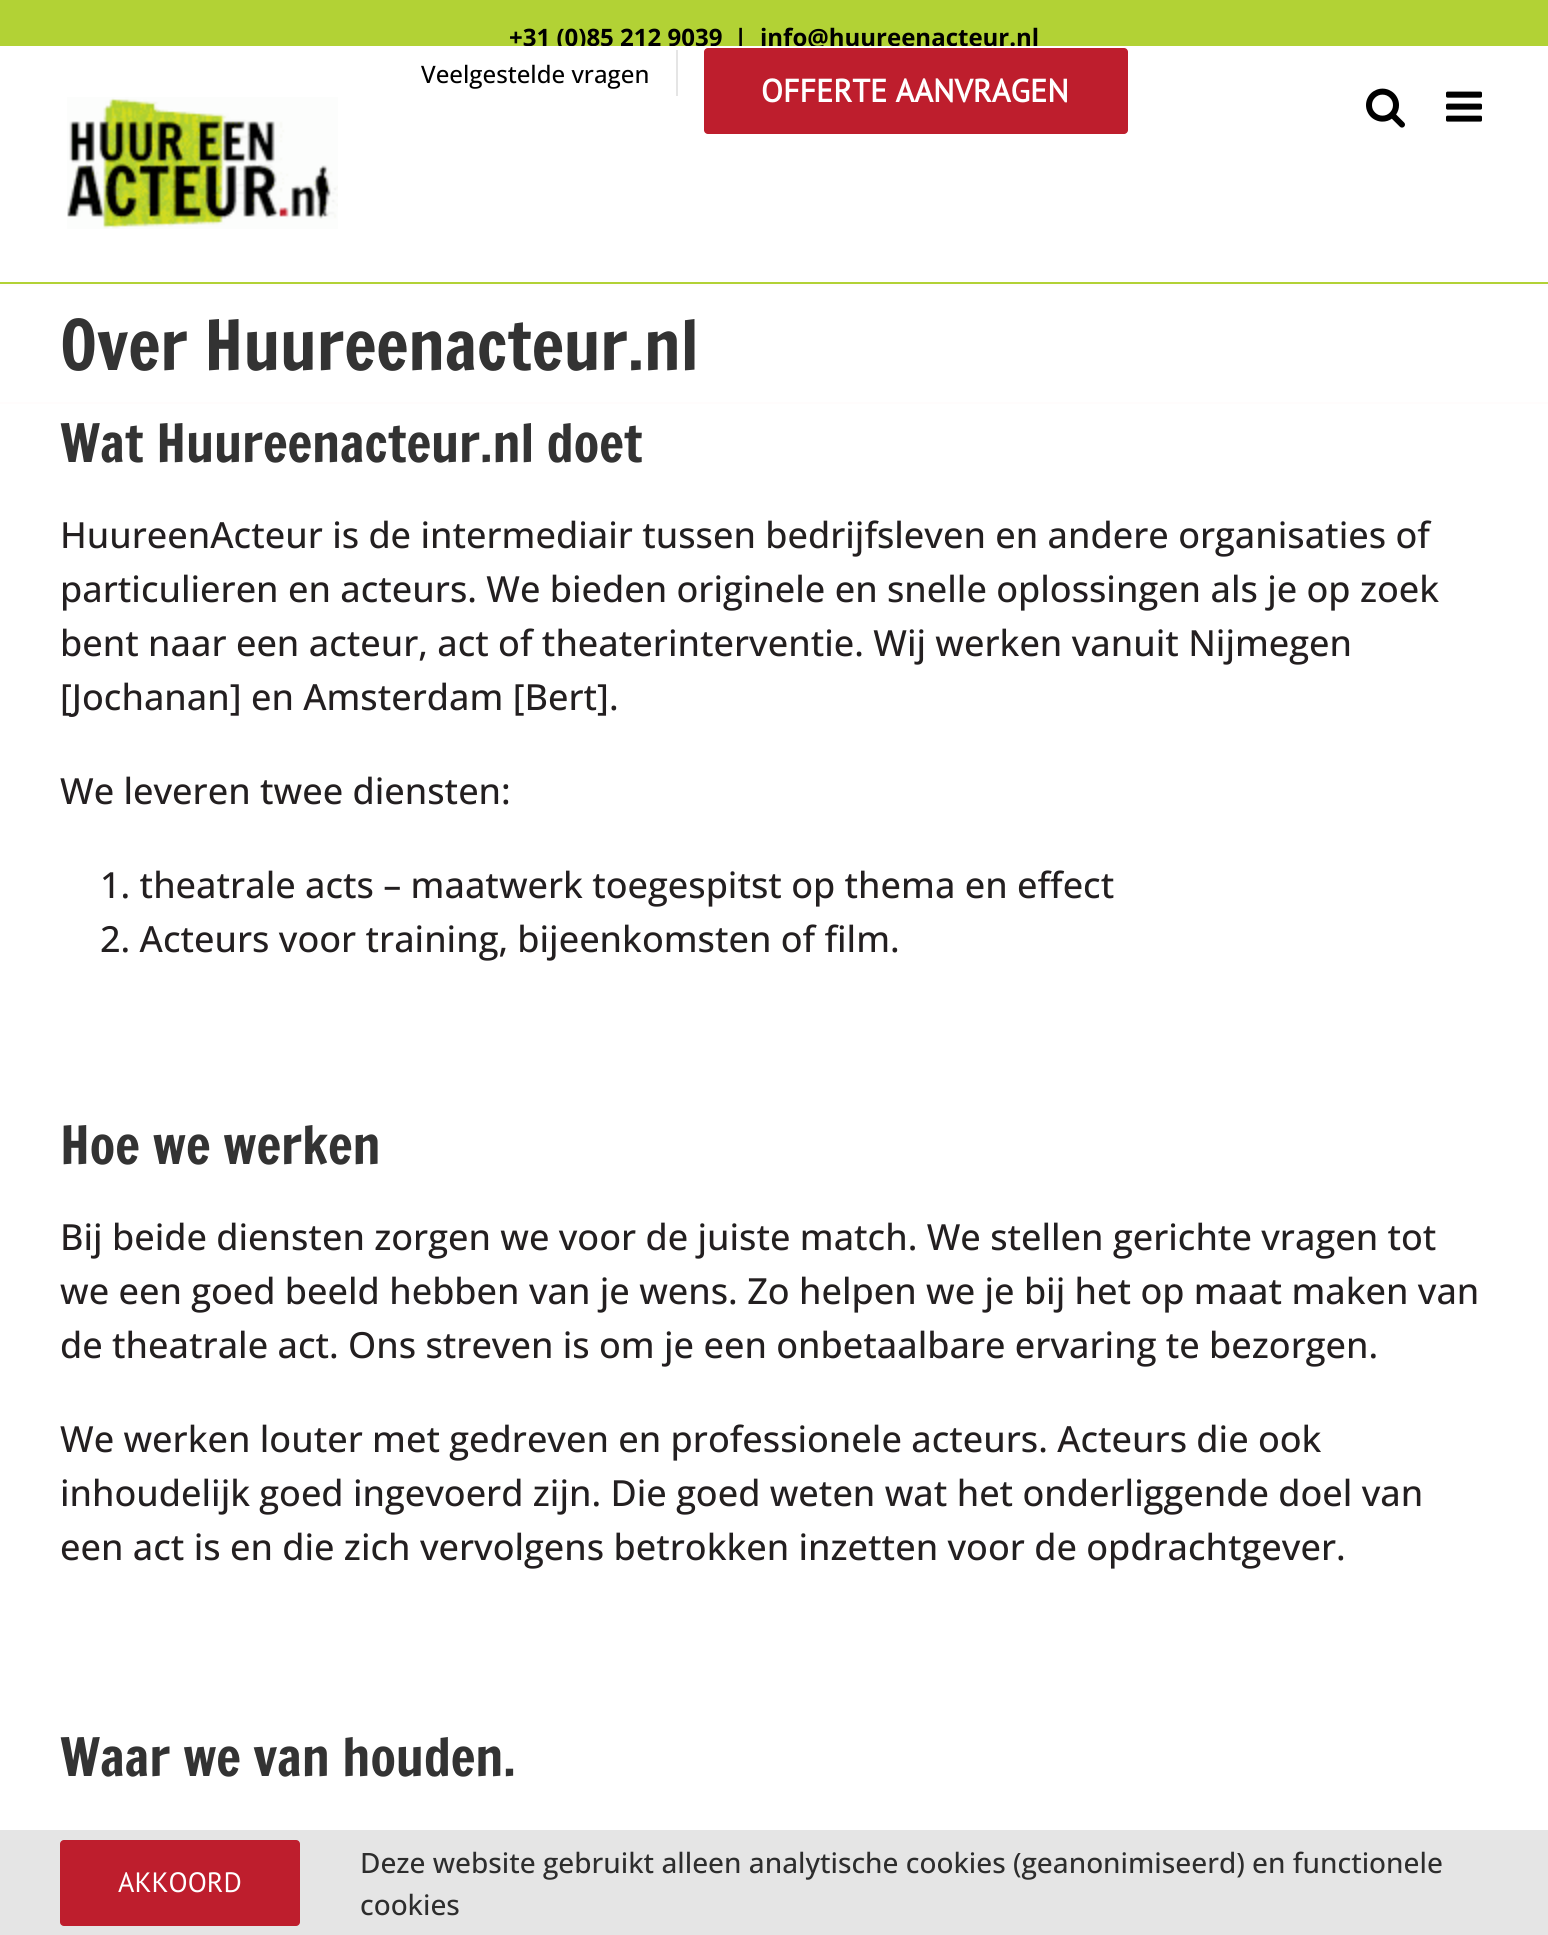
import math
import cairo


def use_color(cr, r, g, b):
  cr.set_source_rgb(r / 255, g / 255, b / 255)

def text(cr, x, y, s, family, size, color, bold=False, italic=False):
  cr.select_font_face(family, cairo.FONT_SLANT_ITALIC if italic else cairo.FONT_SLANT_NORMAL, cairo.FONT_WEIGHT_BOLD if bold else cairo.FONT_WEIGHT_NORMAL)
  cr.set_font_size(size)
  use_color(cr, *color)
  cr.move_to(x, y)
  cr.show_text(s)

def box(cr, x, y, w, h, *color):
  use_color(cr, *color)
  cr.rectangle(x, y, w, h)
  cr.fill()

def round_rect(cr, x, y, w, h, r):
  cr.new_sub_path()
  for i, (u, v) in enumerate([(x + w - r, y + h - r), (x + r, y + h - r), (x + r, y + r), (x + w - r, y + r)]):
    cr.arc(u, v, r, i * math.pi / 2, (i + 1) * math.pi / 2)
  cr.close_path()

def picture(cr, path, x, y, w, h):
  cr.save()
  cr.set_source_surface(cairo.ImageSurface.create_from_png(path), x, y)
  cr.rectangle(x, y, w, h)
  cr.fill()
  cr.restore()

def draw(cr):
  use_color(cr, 255, 255, 255)
  cr.paint()
  box(cr, 0, 0, 1548, 46, 178, 210, 53)
  box(cr, 0, 282, 1548, 2, 178, 210, 53)
  picture(cr, "img_01.png", 67, 97, 271, 132)
  picture(cr, "img_02.png", 1366, 88, 39, 40)
  picture(cr, "img_03.png", 1446, 91, 36, 31)
  box(cr, 0, 284, 1548, 2, 255, 252, 252)
  box(cr, 0, 402, 1548, 2, 255, 252, 252)
  box(cr, 0, 1830, 1548, 105, 229, 229, 229)
  use_color(cr, 190, 30, 45)
  round_rect(cr, 60, 1840, 240, 86, 4)
  cr.fill()
  text(cr, 509, 46, "+31 (0)85 212 9039", "Open Sans", 24, (0, 0, 0), bold=True)
  text(cr, 734, 46, "|", "Open Sans", 24, (0, 0, 0), bold=True)
  text(cr, 760, 46, "info@huureenacteur.nl", "Open Sans", 24, (0, 0, 0), bold=True)
  text(cr, 421, 83, "Veelgestelde vragen", "Open Sans Medium", 24, (0, 0, 0))
  box(cr, 526, 46, 488, 6, 255, 255, 255)
  use_color(cr, 190, 30, 45)
  round_rect(cr, 704, 48, 424, 86, 4)
  cr.fill()
  text(cr, 761, 102, "OFFERTE AANVRAGEN", "PT Sans", 32, (255, 255, 255), bold=True)
  box(cr, 676, 50, 2, 46, 229, 229, 229)
  text(cr, 60, 370, "Over Huureenacteur.nl", "Francois One", 68, (51, 51, 51))
  text(cr, 60, 462, "Wat Huureenacteur.nl doet", "Francois One", 52, (51, 51, 51))
  text(cr, 60, 548, "HuureenActeur is de intermediair tussen bedrijfsleven en andere organisaties of", "Open Sans Medium", 36, (35, 31, 32))
  text(cr, 60, 602, "particulieren en acteurs. We bieden originele en snelle oplossingen als je op zoek", "Open Sans Medium", 36, (35, 31, 32))
  text(cr, 60, 656, "bent naar een acteur, act of theaterinterventie. Wij werken vanuit Nijmegen", "Open Sans Medium", 36, (35, 31, 32))
  text(cr, 60, 710, "[Jochanan] en Amsterdam [Bert].", "Open Sans Medium", 36, (35, 31, 32))
  text(cr, 60, 804, "We leveren twee diensten:", "Open Sans Medium", 36, (35, 31, 32))
  text(cr, 100, 898, "1. theatrale acts – maatwerk toegespitst op thema en effect", "Open Sans Medium", 36, (35, 31, 32))
  text(cr, 100, 952, "2. Acteurs voor training, bijeenkomsten of film.", "Open Sans Medium", 36, (35, 31, 32))
  text(cr, 60, 1164, "Hoe we werken", "Francois One", 52, (51, 51, 51))
  text(cr, 60, 1250, "Bij beide diensten zorgen we voor de juiste match. We stellen gerichte vragen tot", "Open Sans Medium", 36, (35, 31, 32))
  text(cr, 60, 1304, "we een goed beeld hebben van je wens. Zo helpen we je bij het op maat maken van", "Open Sans Medium", 36, (35, 31, 32))
  text(cr, 60, 1358, "de theatrale act. Ons streven is om je een onbetaalbare ervaring te bezorgen.", "Open Sans Medium", 36, (35, 31, 32))
  text(cr, 60, 1452, "We werken louter met gedreven en professionele acteurs. Acteurs die ook", "Open Sans Medium", 36, (35, 31, 32))
  text(cr, 60, 1506, "inhoudelijk goed ingevoerd zijn. Die goed weten wat het onderliggende doel van", "Open Sans Medium", 36, (35, 31, 32))
  text(cr, 60, 1560, "een act is en die zich vervolgens betrokken inzetten voor de opdrachtgever.", "Open Sans Medium", 36, (35, 31, 32))
  text(cr, 60, 1776, "Waar we van houden.", "Francois One", 52, (51, 51, 51))
  text(cr, 118, 1892, "AKKOORD", "PT Sans", 28, (255, 255, 255))
  text(cr, 360, 1873, "Deze website gebruikt alleen analytische cookies (geanonimiseerd) en functionele", "Open Sans Medium", 28, (45, 45, 45))
  text(cr, 360, 1915, "cookies", "Open Sans Medium", 28, (45, 45, 45))


surface = cairo.ImageSurface(cairo.FORMAT_RGB24, 1548, 1935)
cr = cairo.Context(surface)
options = cairo.FontOptions()
options.set_hint_metrics(cairo.HINT_METRICS_OFF)
options.set_hint_style(cairo.HINT_STYLE_NONE)
cr.set_font_options(options)
cr.set_miter_limit(4)
draw(cr)
surface.write_to_png("out.png")
